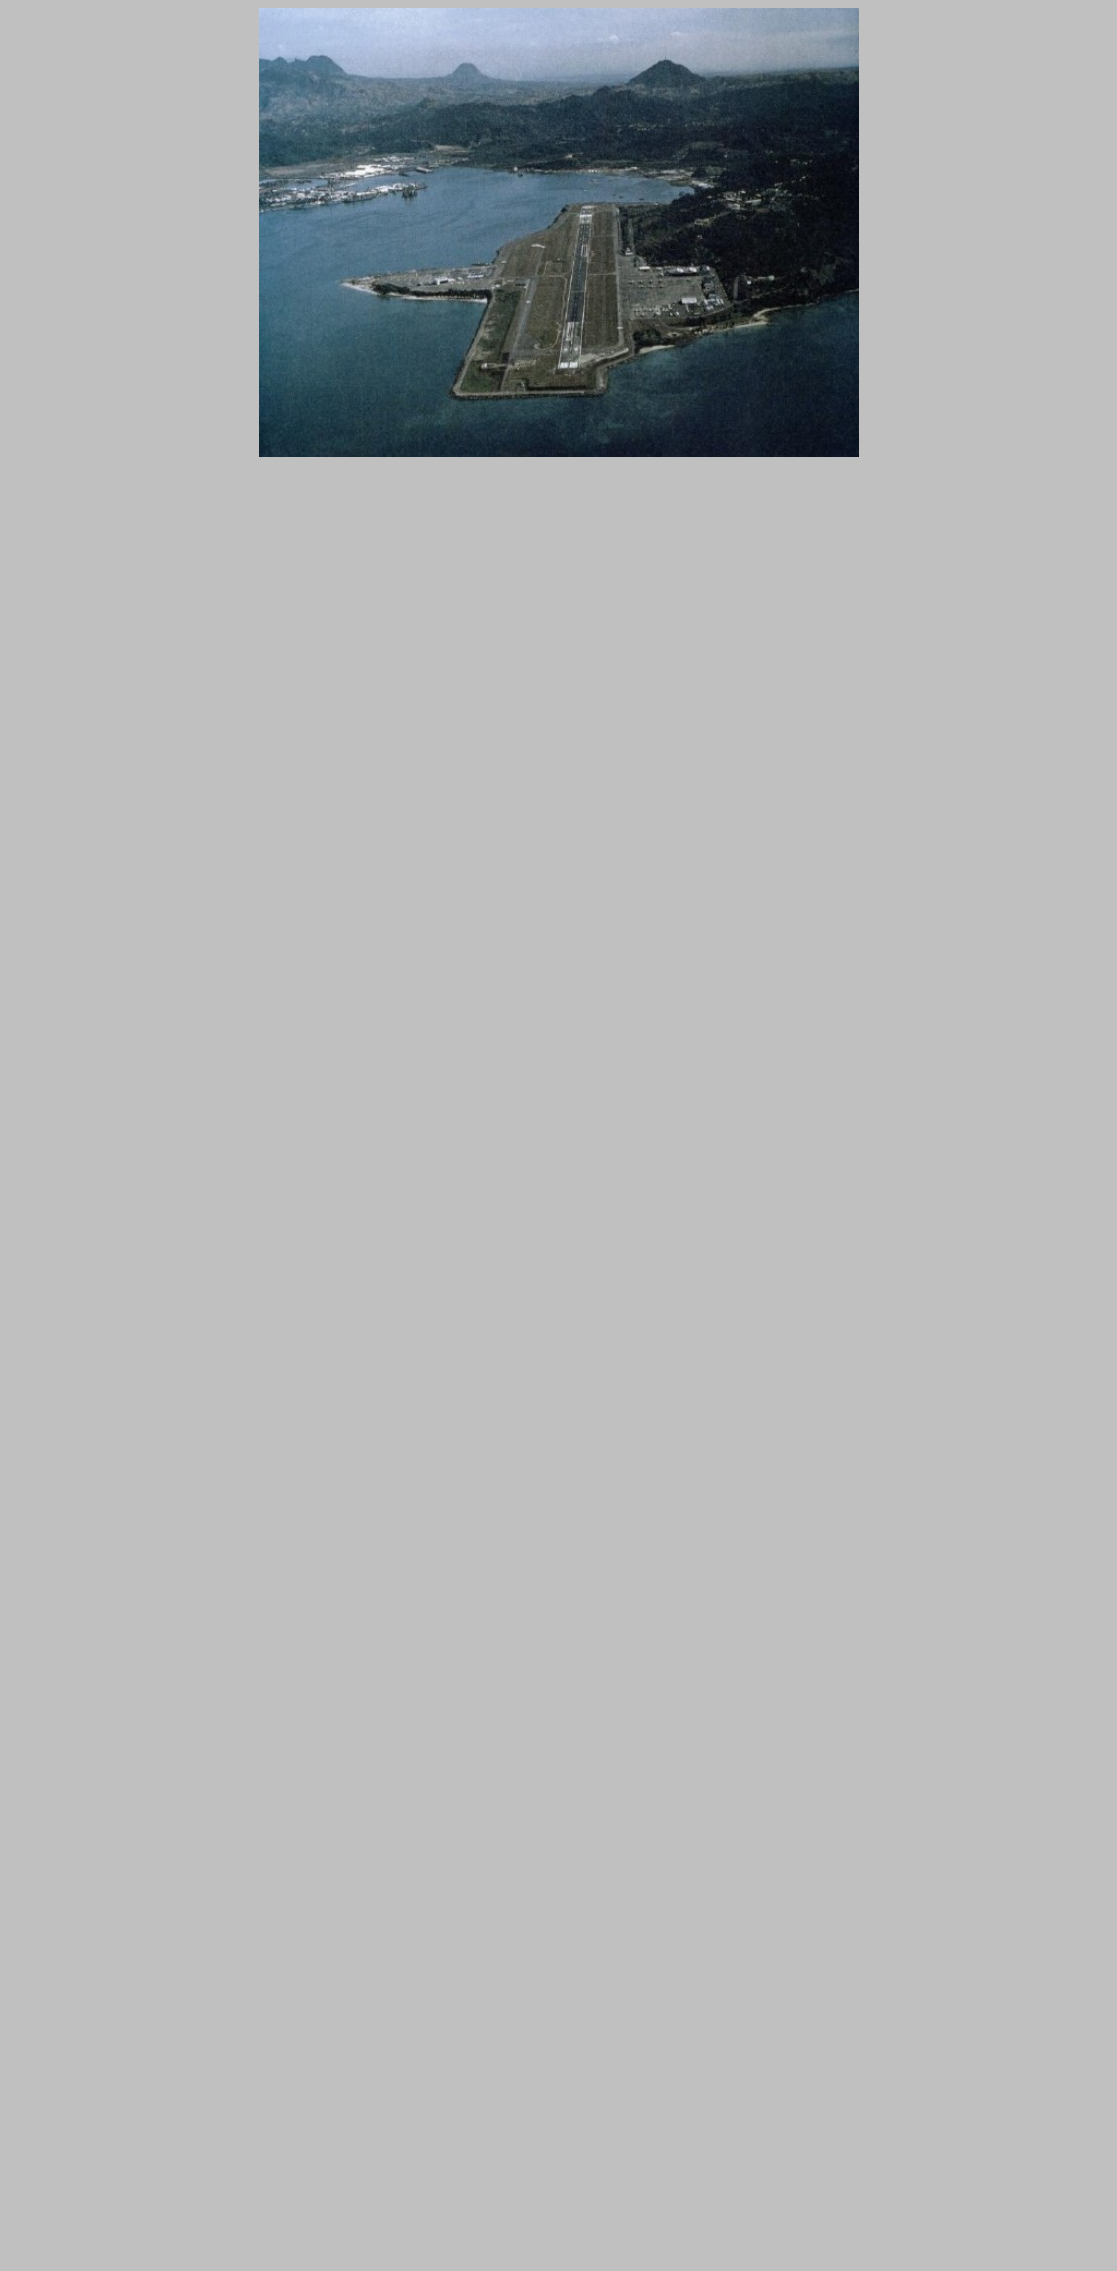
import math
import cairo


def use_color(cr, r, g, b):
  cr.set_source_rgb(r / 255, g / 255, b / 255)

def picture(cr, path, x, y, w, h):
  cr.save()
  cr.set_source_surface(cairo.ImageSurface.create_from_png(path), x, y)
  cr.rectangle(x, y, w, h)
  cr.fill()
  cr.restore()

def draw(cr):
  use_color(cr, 192, 192, 192)
  cr.paint()
  picture(cr, "img_01.png", 259, 8, 600, 449)


surface = cairo.ImageSurface(cairo.FORMAT_RGB24, 1117, 2271)
cr = cairo.Context(surface)
options = cairo.FontOptions()
options.set_hint_metrics(cairo.HINT_METRICS_OFF)
options.set_hint_style(cairo.HINT_STYLE_NONE)
cr.set_font_options(options)
cr.set_miter_limit(4)
draw(cr)
surface.write_to_png("out.png")
